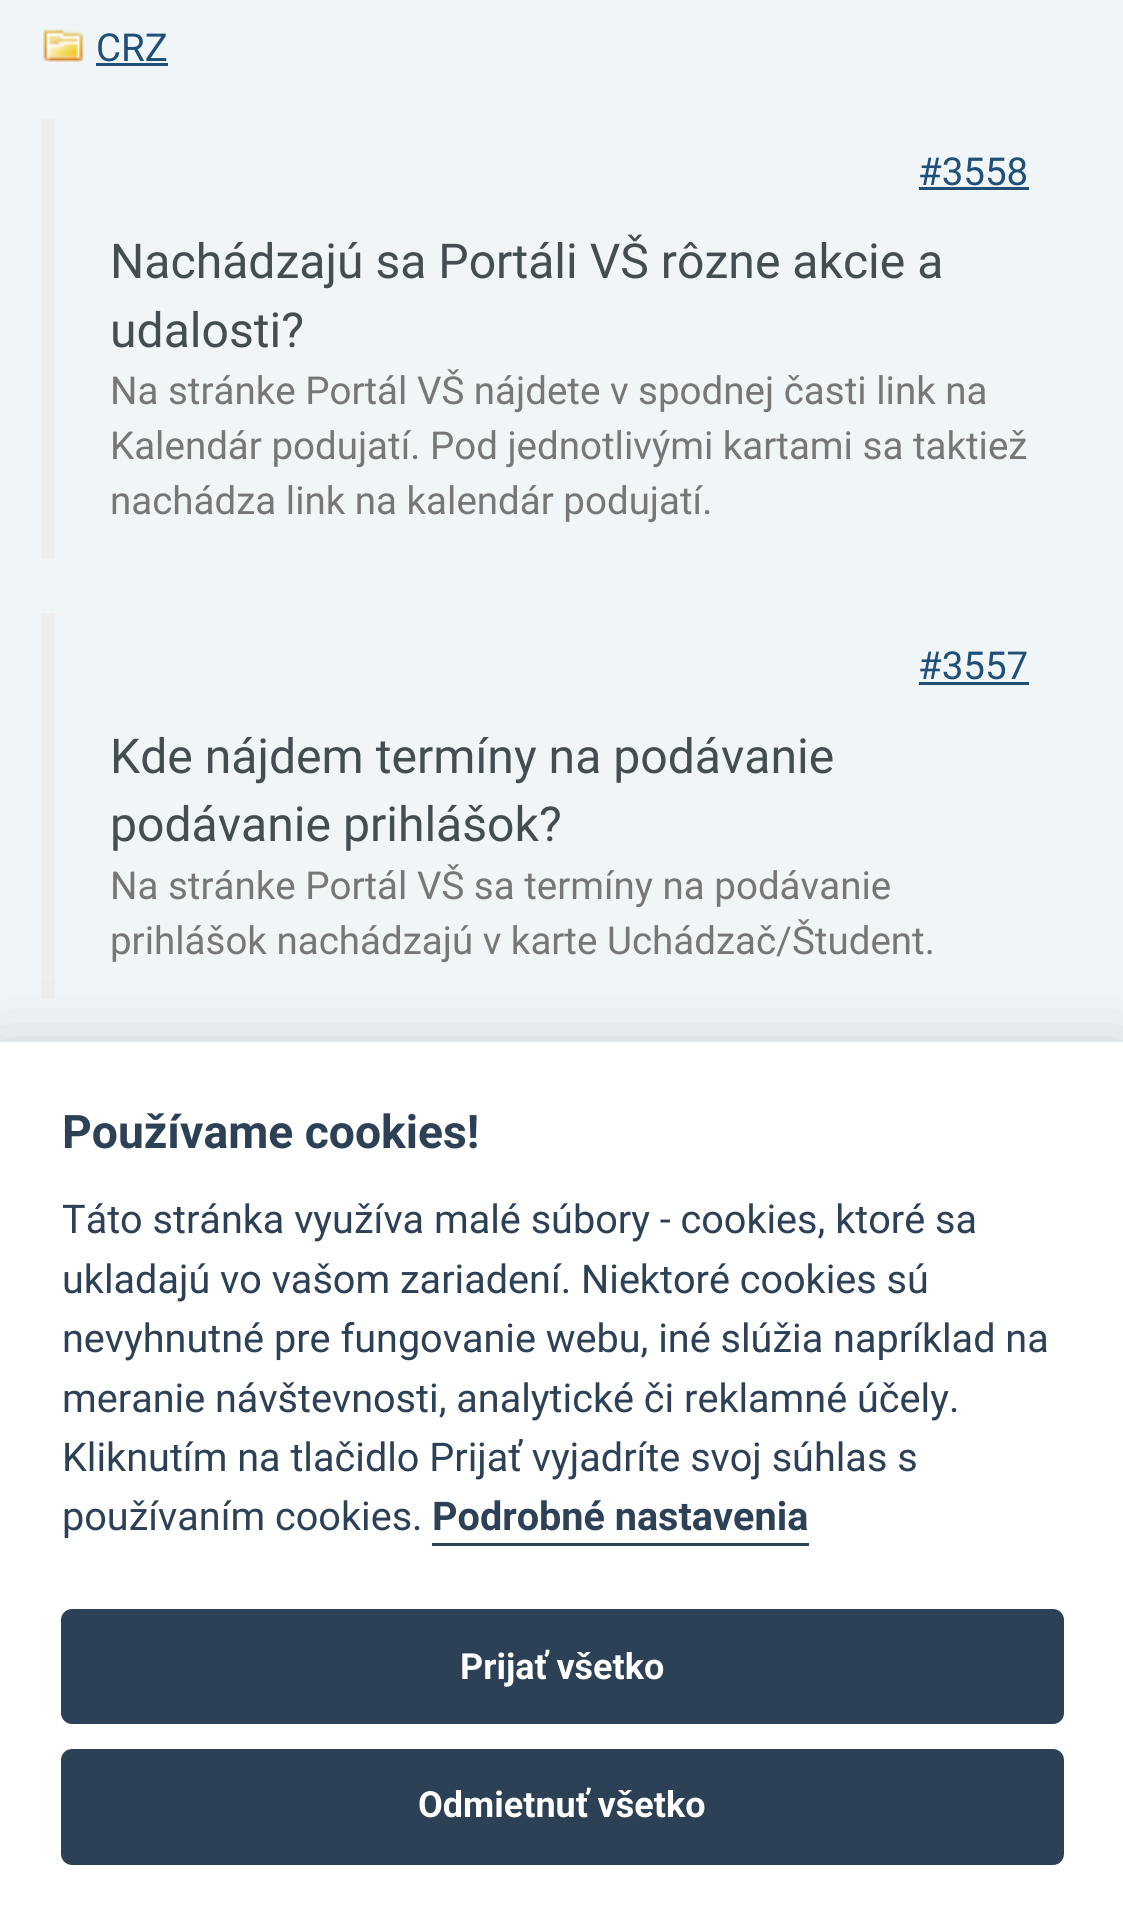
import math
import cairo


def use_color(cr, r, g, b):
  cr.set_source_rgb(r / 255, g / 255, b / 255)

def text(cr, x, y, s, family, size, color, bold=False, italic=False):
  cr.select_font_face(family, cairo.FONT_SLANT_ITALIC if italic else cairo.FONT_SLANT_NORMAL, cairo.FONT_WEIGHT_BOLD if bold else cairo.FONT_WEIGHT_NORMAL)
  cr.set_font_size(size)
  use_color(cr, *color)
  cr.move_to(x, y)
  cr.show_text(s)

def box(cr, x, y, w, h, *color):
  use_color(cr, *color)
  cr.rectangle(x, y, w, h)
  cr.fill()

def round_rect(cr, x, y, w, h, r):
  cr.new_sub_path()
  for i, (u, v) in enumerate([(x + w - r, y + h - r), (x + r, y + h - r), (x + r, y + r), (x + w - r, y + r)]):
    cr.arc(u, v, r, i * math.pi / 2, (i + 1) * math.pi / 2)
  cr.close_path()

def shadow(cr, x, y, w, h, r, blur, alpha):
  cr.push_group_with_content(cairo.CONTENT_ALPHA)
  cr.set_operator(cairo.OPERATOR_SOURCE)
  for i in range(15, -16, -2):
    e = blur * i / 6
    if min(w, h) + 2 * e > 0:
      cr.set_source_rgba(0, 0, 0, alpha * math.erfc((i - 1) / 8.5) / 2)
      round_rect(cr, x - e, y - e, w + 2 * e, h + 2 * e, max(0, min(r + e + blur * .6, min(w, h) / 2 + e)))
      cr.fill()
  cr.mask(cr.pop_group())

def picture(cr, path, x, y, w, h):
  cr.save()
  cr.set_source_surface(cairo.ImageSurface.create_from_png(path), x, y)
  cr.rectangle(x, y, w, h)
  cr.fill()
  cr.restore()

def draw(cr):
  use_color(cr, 240, 245, 248)
  cr.paint()
  picture(cr, "img_01.png", 43, 29, 41, 33)
  box(cr, 96, 63, 72, 3, 32, 80, 120)
  box(cr, 41, 118, 14, 440, 238, 238, 238)
  box(cr, 919, 187, 110, 3, 32, 80, 120)
  box(cr, 41, 613, 14, 385, 238, 238, 238)
  box(cr, 919, 682, 110, 3, 32, 80, 120)
  use_color(cr, 2, 2, 3)
  shadow(cr, 0, 1070, 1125, 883, 0, 41, 0.28)
  box(cr, 0, 1042, 1123, 881, 255, 255, 255)
  box(cr, 432, 1543, 377, 3, 45, 65, 86)
  round_rect(cr, 61, 1609, 1003, 115, 11)
  cr.fill()
  round_rect(cr, 61, 1749, 1003, 116, 11)
  cr.fill()
  text(cr, 96, 61, "CRZ", "Roboto", 38.5, (32, 80, 120))
  text(cr, 918, 185, "#3558", "Roboto", 38.5, (32, 80, 120))
  text(cr, 110, 278, "Nachádzajú sa Portáli VŠ rôzne akcie a", "Roboto", 48.1, (67, 78, 83))
  text(cr, 110, 347, "udalosti?", "Roboto", 48.1, (67, 78, 83))
  text(cr, 110, 404, "Na stránke Portál VŠ nájdete v spodnej časti link na", "Roboto", 38.5, (119, 119, 119))
  text(cr, 110, 459, "Kalendár podujatí. Pod jednotlivými kartami sa taktiež", "Roboto", 38.5, (119, 119, 119))
  text(cr, 110, 514, "nachádza link na kalendár podujatí.", "Roboto", 38.5, (119, 119, 119))
  text(cr, 918, 679, "#3557", "Roboto", 38.5, (32, 80, 120))
  text(cr, 110, 773, "Kde nájdem termíny na podávanie", "Roboto", 48.1, (67, 78, 83))
  text(cr, 110, 841, "podávanie prihlášok?", "Roboto", 48.1, (67, 78, 83))
  text(cr, 110, 899, "Na stránke Portál VŠ sa termíny na podávanie", "Roboto", 38.5, (119, 119, 119))
  text(cr, 110, 954, "prihlášok nachádzajú v karte Uchádzač/Študent.", "Roboto", 38.5, (119, 119, 119))
  text(cr, 62, 1148, "Používame cookies!", "Roboto", 46.25, (45, 65, 86), bold=True)
  text(cr, 62, 1233, "Táto stránka využíva malé súbory - cookies, ktoré sa", "Roboto", 39.6, (45, 65, 86))
  text(cr, 62, 1293, "ukladajú vo vašom zariadení. Niektoré cookies sú", "Roboto", 39.6, (45, 65, 86))
  text(cr, 62, 1352, "nevyhnutné pre fungovanie webu, iné slúžia napríklad na", "Roboto", 39.6, (45, 65, 86))
  text(cr, 62, 1412, "meranie návštevnosti, analytické či reklamné účely.", "Roboto", 39.6, (45, 65, 86))
  text(cr, 62, 1471, "Kliknutím na tlačidlo Prijať vyjadríte svoj súhlas s", "Roboto", 39.6, (45, 65, 86))
  text(cr, 62, 1530, "používaním cookies.", "Roboto", 39.6, (45, 65, 86))
  text(cr, 432, 1530, "Podrobné nastavenia", "Roboto", 39.6, (45, 65, 86), bold=True)
  text(cr, 460, 1679, "Prijať všetko", "Roboto", 36, (255, 255, 255), bold=True)
  text(cr, 418, 1817, "Odmietnuť všetko", "Roboto", 36, (255, 255, 255), bold=True)


surface = cairo.ImageSurface(cairo.FORMAT_RGB24, 1123, 1923)
cr = cairo.Context(surface)
options = cairo.FontOptions()
options.set_hint_metrics(cairo.HINT_METRICS_OFF)
options.set_hint_style(cairo.HINT_STYLE_NONE)
cr.set_font_options(options)
cr.set_miter_limit(4)
draw(cr)
surface.write_to_png("out.png")
